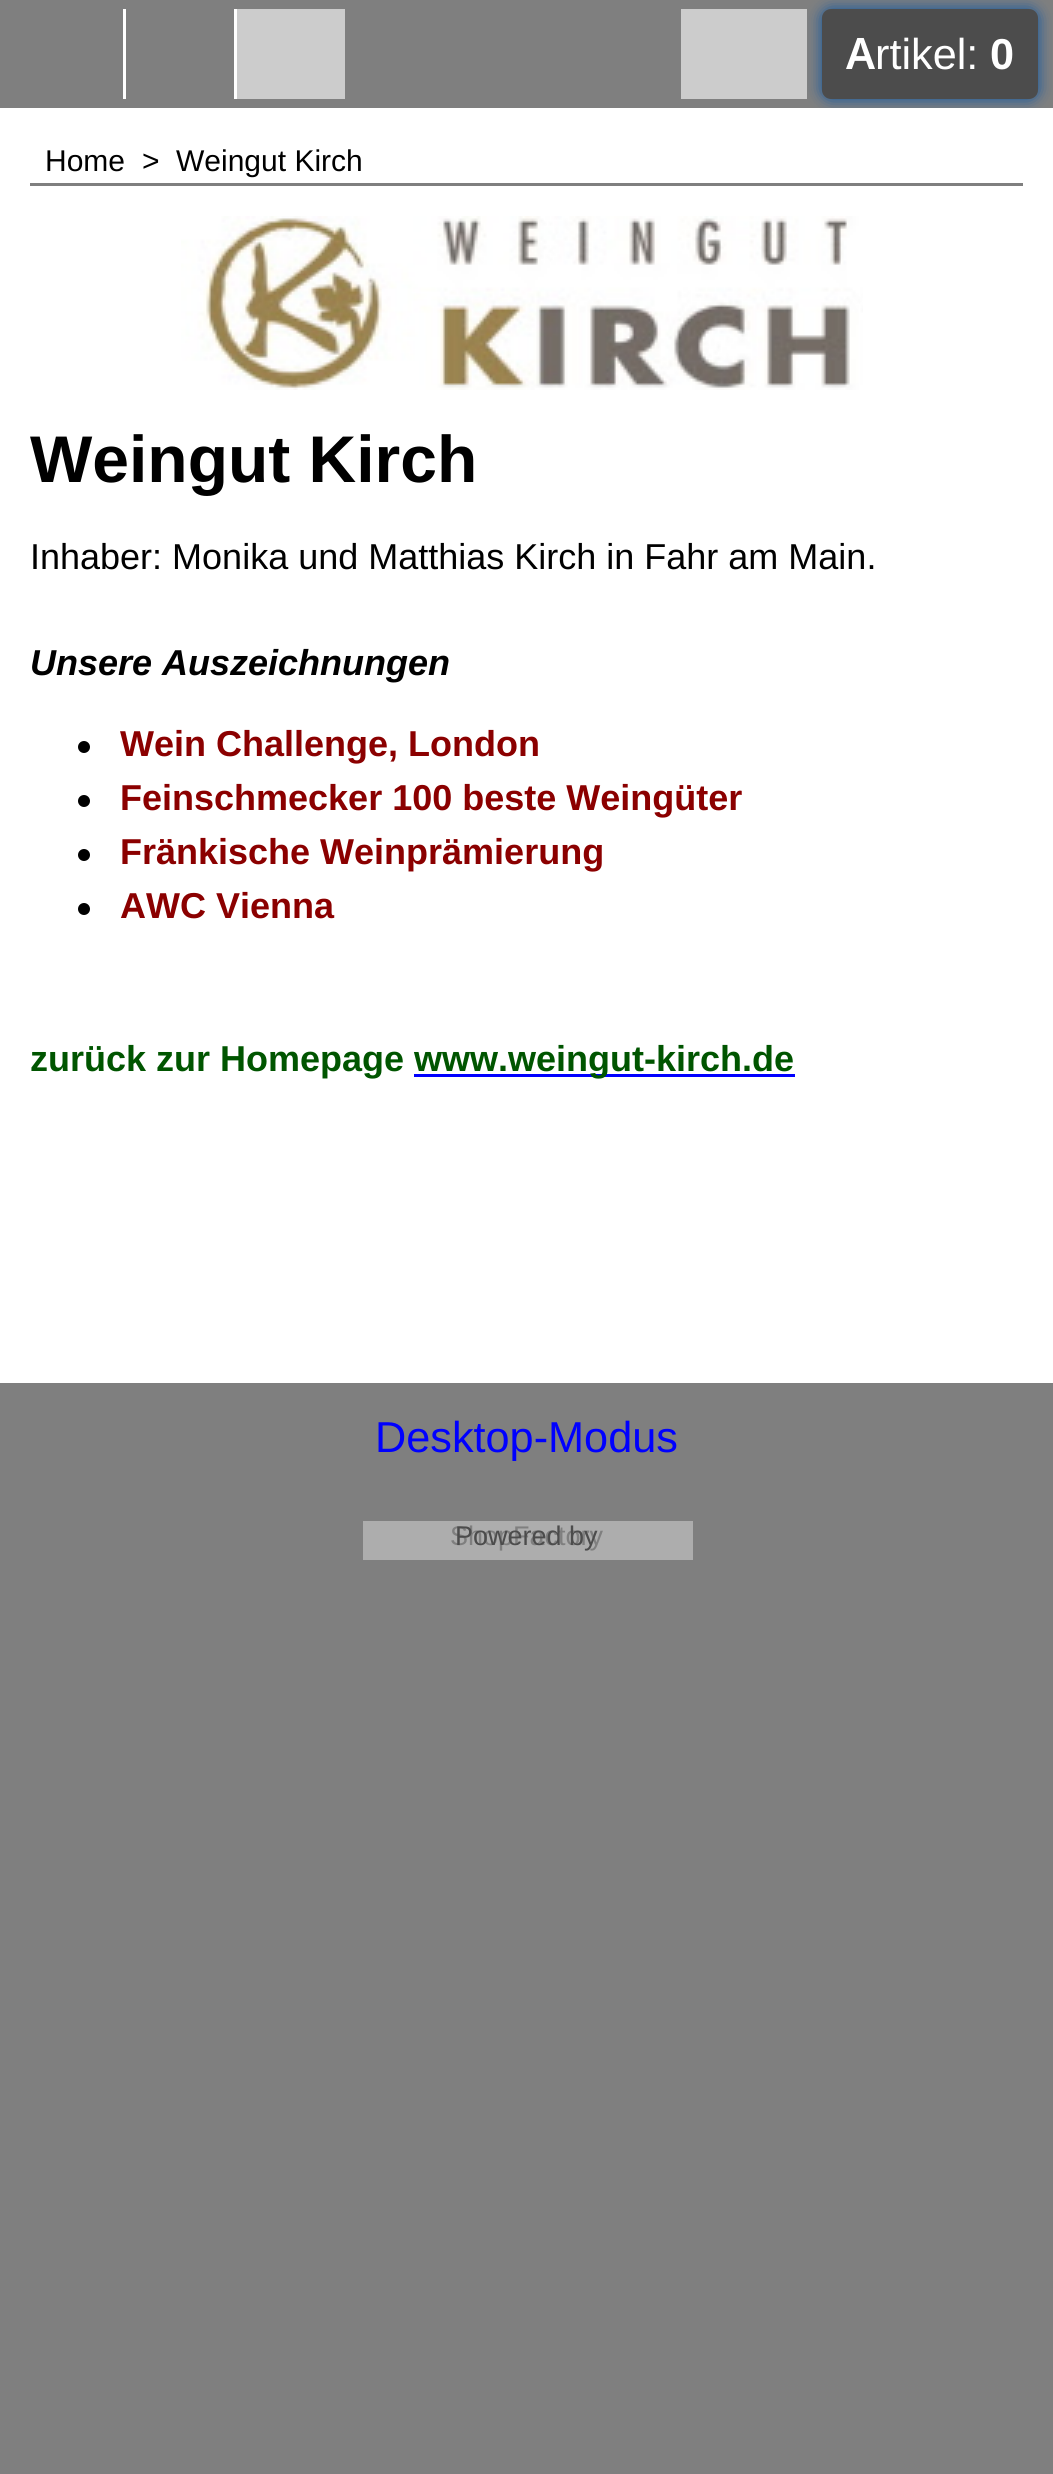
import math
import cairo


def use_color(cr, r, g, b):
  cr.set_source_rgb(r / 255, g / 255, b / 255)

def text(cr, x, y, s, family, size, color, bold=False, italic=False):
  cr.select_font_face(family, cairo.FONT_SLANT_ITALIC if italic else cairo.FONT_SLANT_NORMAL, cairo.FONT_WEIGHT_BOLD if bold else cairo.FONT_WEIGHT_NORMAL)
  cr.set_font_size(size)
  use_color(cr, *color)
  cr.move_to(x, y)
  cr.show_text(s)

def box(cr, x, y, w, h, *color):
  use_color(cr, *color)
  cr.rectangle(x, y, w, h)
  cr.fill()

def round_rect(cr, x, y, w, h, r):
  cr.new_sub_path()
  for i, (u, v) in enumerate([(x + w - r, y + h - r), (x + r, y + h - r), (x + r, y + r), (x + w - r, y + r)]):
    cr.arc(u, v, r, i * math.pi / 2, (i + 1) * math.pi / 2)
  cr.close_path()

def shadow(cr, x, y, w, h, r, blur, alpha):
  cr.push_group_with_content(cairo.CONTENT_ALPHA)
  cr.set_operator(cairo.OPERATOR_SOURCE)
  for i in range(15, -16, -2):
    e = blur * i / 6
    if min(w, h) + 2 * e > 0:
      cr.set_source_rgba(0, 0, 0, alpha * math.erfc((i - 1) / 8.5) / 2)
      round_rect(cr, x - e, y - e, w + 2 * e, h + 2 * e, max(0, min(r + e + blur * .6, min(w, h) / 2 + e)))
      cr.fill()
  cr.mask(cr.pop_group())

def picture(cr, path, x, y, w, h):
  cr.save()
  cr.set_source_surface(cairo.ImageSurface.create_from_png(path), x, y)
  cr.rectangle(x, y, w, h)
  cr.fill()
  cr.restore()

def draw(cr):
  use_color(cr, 127, 127, 127)
  cr.paint()
  box(cr, 123, 9, 3, 90, 255, 255, 255)
  box(cr, 234, 9, 3, 90, 255, 255, 255)
  box(cr, 237, 9, 108, 90, 204, 204, 204)
  use_color(cr, 10, 85, 163)
  shadow(cr, 822, 9, 216, 90, 9, 7.5, 1)
  box(cr, 681, 9, 126, 90, 204, 204, 204)
  use_color(cr, 76, 76, 76)
  round_rect(cr, 822, 9, 216, 90, 9)
  cr.fill()
  box(cr, 0, 108, 1053, 1275, 255, 255, 255)
  box(cr, 30, 183, 993, 3, 127, 127, 127)
  picture(cr, "img_01.png", 181, 216, 682, 174)
  use_color(cr, 0, 0, 0)
  cr.arc(84, 747, 6, 0, 2 * math.pi)
  cr.fill()
  cr.arc(84, 801, 6, 0, 2 * math.pi)
  cr.fill()
  cr.arc(84, 855, 6, 0, 2 * math.pi)
  cr.fill()
  cr.arc(84, 909, 6, 0, 2 * math.pi)
  cr.fill()
  box(cr, 414, 1074, 381, 3, 0, 0, 255)
  box(cr, 363, 1521, 330, 39, 173, 173, 173)
  text(cr, 846, 69, "A", "Noto Sans SemiBold", 43.25, (255, 255, 255))
  text(cr, 875, 69, "rtikel:", "Liberation Sans", 43.25, (255, 255, 255))
  text(cr, 990, 69, "0", "Liberation Sans", 43.25, (255, 255, 255), bold=True)
  text(cr, 45, 171, "Home", "Liberation Sans", 30, (0, 0, 0))
  text(cr, 142, 171, ">", "Liberation Sans", 30, (0, 0, 0))
  text(cr, 176, 171, "Weingut Kirch", "Liberation Sans", 30, (0, 0, 0))
  text(cr, 30, 482, "Weingut Kirch", "Liberation Sans", 66, (0, 0, 0), bold=True)
  text(cr, 30, 569, "Inhaber: Monika und Matthias Kirch in Fahr am Main.", "Liberation Sans", 36, (0, 0, 0))
  text(cr, 30, 675, "Unsere Auszeichnungen", "Liberation Sans", 36, (0, 0, 0), bold=True, italic=True)
  text(cr, 120, 756, "Wein Challenge, London", "Liberation Sans", 36, (139, 0, 0), bold=True)
  text(cr, 120, 810, "Feinschmecker 100 beste Weingüter", "Liberation Sans", 36, (139, 0, 0), bold=True)
  text(cr, 120, 864, "Fränkische Weinprämierung", "Liberation Sans", 36, (139, 0, 0), bold=True)
  text(cr, 120, 918, "AWC Vienna", "Liberation Sans", 36, (139, 0, 0), bold=True)
  text(cr, 30, 1071, "zurück zur Homepage", "Liberation Sans", 36, (0, 85, 0), bold=True)
  text(cr, 414, 1071, "www.weingut-kirch.de", "Liberation Sans", 36, (0, 85, 0), bold=True)
  text(cr, 375, 1452, "Desktop-Modus", "Liberation Sans", 43.25, (0, 0, 255))
  text(cr, 450, 1545, "ShopFactory", "Liberation Sans", 27, (127, 127, 127))
  text(cr, 455, 1545, "Powered by", "Liberation Sans", 27, (76, 76, 76))


surface = cairo.ImageSurface(cairo.FORMAT_RGB24, 1053, 2474)
cr = cairo.Context(surface)
options = cairo.FontOptions()
options.set_hint_metrics(cairo.HINT_METRICS_OFF)
options.set_hint_style(cairo.HINT_STYLE_NONE)
cr.set_font_options(options)
cr.set_miter_limit(4)
draw(cr)
surface.write_to_png("out.png")
